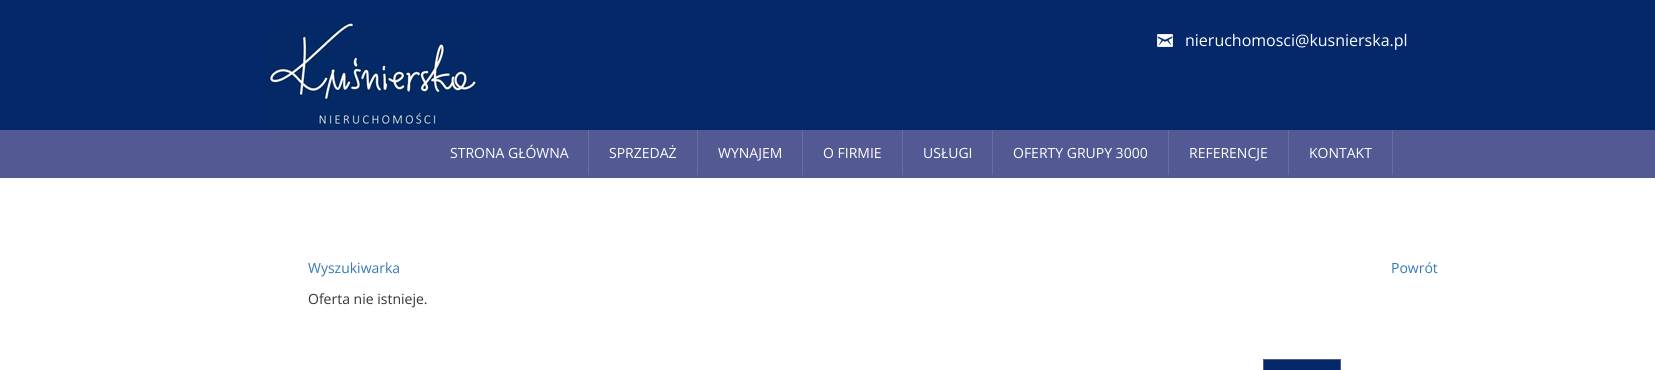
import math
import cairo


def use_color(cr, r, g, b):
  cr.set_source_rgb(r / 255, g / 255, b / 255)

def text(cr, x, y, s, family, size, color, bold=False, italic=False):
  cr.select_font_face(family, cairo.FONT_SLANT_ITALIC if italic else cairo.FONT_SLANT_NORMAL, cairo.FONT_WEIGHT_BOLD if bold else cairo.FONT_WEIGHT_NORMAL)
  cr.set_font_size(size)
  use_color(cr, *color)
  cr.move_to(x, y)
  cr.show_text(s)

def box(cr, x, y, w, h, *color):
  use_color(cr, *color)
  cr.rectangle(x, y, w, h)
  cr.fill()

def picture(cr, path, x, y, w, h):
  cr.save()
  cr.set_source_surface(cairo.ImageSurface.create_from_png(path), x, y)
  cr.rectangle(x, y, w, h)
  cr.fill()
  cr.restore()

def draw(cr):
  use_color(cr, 255, 255, 255)
  cr.paint()
  box(cr, 0, 0, 1655, 130, 5, 40, 106)
  picture(cr, "img_01.png", 263, 20, 216, 110)
  picture(cr, "img_02.png", 1157, 34, 16, 13)
  box(cr, 0, 130, 1655, 48, 83, 89, 147)
  box(cr, 588, 130, 1, 45, 102, 111, 162)
  box(cr, 697, 130, 1, 45, 102, 111, 162)
  box(cr, 802, 130, 1, 45, 102, 111, 162)
  box(cr, 902, 130, 1, 45, 102, 111, 162)
  box(cr, 992, 130, 1, 45, 102, 111, 162)
  box(cr, 1168, 130, 1, 45, 102, 111, 162)
  box(cr, 1288, 130, 1, 45, 102, 111, 162)
  box(cr, 1392, 130, 1, 45, 102, 111, 162)
  use_color(cr, 5, 40, 106)
  cr.rectangle(1263.5, 359.5, 77, 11)
  cr.fill_preserve()
  use_color(cr, 83, 89, 149)
  cr.set_line_width(1)
  cr.stroke()
  text(cr, 1185, 46, "nieruchomosci@kusnierska.pl", "Open Sans", 16, (255, 255, 255))
  text(cr, 450, 158, "STRONA GŁÓWNA", "Open Sans", 14, (255, 255, 255))
  text(cr, 609, 158, "SPRZEDAŻ", "Open Sans", 14, (255, 255, 255))
  text(cr, 718, 158, "WYNAJEM", "Open Sans", 14, (255, 255, 255))
  text(cr, 823, 158, "O FIRMIE", "Open Sans", 14, (255, 255, 255))
  text(cr, 923, 158, "USŁUGI", "Open Sans", 14, (255, 255, 255))
  text(cr, 1013, 158, "OFERTY GRUPY 3000", "Open Sans", 14, (255, 255, 255))
  text(cr, 1189, 158, "REFERENCJE", "Open Sans", 14, (255, 255, 255))
  text(cr, 1309, 158, "KONTAKT", "Open Sans", 14, (255, 255, 255))
  text(cr, 308, 273, "Wyszukiwarka", "Open Sans", 14, (51, 122, 183))
  text(cr, 1391, 273, "Powrót", "Open Sans", 14, (51, 122, 183))
  text(cr, 308, 304, "Oferta nie istnieje.", "Open Sans", 14, (51, 51, 51))


surface = cairo.ImageSurface(cairo.FORMAT_RGB24, 1655, 370)
cr = cairo.Context(surface)
options = cairo.FontOptions()
options.set_hint_metrics(cairo.HINT_METRICS_OFF)
options.set_hint_style(cairo.HINT_STYLE_NONE)
cr.set_font_options(options)
cr.set_miter_limit(4)
draw(cr)
surface.write_to_png("out.png")
